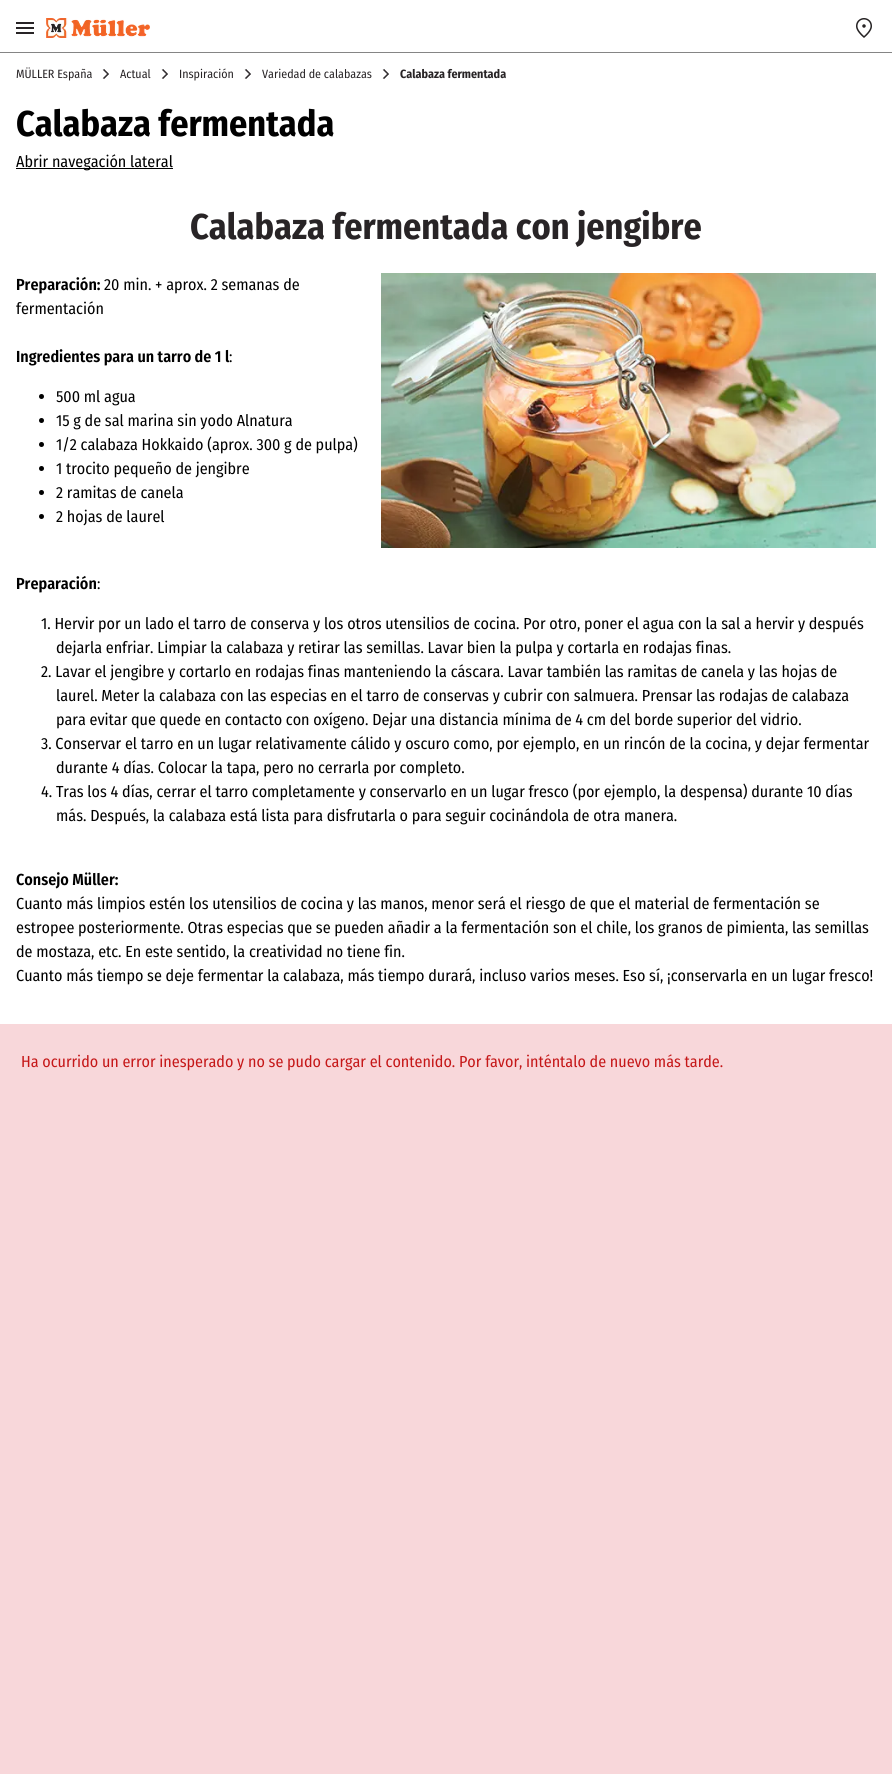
import math
import cairo


def use_color(cr, r, g, b):
  cr.set_source_rgb(r / 255, g / 255, b / 255)

def text(cr, x, y, s, family, size, color, bold=False, italic=False):
  cr.select_font_face(family, cairo.FONT_SLANT_ITALIC if italic else cairo.FONT_SLANT_NORMAL, cairo.FONT_WEIGHT_BOLD if bold else cairo.FONT_WEIGHT_NORMAL)
  cr.set_font_size(size)
  use_color(cr, *color)
  cr.move_to(x, y)
  cr.show_text(s)

def box(cr, x, y, w, h, *color):
  use_color(cr, *color)
  cr.rectangle(x, y, w, h)
  cr.fill()

def picture(cr, path, x, y, w, h):
  cr.save()
  cr.set_source_surface(cairo.ImageSurface.create_from_png(path), x, y)
  cr.rectangle(x, y, w, h)
  cr.fill()
  cr.restore()

def draw(cr):
  use_color(cr, 255, 255, 255)
  cr.paint()
  box(cr, 0, 52, 892, 1, 133, 133, 133)
  box(cr, 16, 22, 18, 2, 40, 36, 38)
  box(cr, 16, 32, 18, 2, 40, 36, 38)
  box(cr, 16, 27, 18, 2, 40, 36, 38)
  picture(cr, "img_01.png", 46, 18, 104, 20)
  picture(cr, "img_02.png", 856, 18, 16, 20)
  picture(cr, "img_03.png", 102, 69, 7, 10)
  picture(cr, "img_03.png", 161, 69, 7, 10)
  picture(cr, "img_03.png", 244, 69, 7, 10)
  picture(cr, "img_03.png", 382, 69, 7, 10)
  box(cr, 16, 168, 157, 1, 0, 0, 0)
  cr.arc(41.5, 396.5, 2.5, 0, 2 * math.pi)
  cr.fill()
  cr.arc(41.5, 420.5, 2.5, 0, 2 * math.pi)
  cr.fill()
  cr.arc(41.5, 444.5, 2.5, 0, 2 * math.pi)
  cr.fill()
  cr.arc(41.5, 468.5, 2.5, 0, 2 * math.pi)
  cr.fill()
  cr.arc(41.5, 492.5, 2.5, 0, 2 * math.pi)
  cr.fill()
  cr.arc(41.5, 516.5, 2.5, 0, 2 * math.pi)
  cr.fill()
  picture(cr, "img_04.png", 381, 273, 495, 275)
  box(cr, 0, 1024, 892, 750, 248, 215, 218)
  text(cr, 16, 78, "MÜLLER España", "Fira Sans Condensed", 12, (40, 36, 38))
  text(cr, 120, 78, "Actual", "Fira Sans Condensed", 12, (40, 36, 38))
  text(cr, 179, 78, "Inspiración", "Fira Sans Condensed", 12, (40, 36, 38))
  text(cr, 262, 78, "Variedad de calabazas", "Fira Sans Condensed", 12, (40, 36, 38))
  text(cr, 400, 78, "Calabaza fermentada", "Fira Sans Condensed", 12, (40, 36, 38), bold=True)
  text(cr, 16, 136, "Calabaza fermentada", "Fira Sans Condensed", 36, (0, 0, 0), bold=True)
  text(cr, 16, 167, "Abrir navegación lateral", "Fira Sans Condensed", 16, (0, 0, 0))
  text(cr, 190, 239, "Calabaza fermentada con jengibre", "Fira Sans Condensed", 36, (40, 36, 38), bold=True)
  text(cr, 16, 290, "Preparación:", "Fira Sans Condensed SemiBold", 16, (0, 0, 0))
  text(cr, 104, 290, "20 min. + aprox. 2 semanas de", "Fira Sans Condensed", 16, (0, 0, 0))
  text(cr, 16, 314, "fermentación", "Fira Sans Condensed", 16, (0, 0, 0))
  text(cr, 16, 362, "Ingredientes para un tarro de 1 l", "Fira Sans Condensed SemiBold", 16, (0, 0, 0))
  text(cr, 229, 362, ":", "Fira Sans Condensed", 16, (0, 0, 0))
  text(cr, 56, 402, "500 ml agua", "Fira Sans Condensed", 16, (0, 0, 0))
  text(cr, 56, 426, "15 g de sal marina sin yodo Alnatura", "Fira Sans Condensed", 16, (0, 0, 0))
  text(cr, 56, 450, "1/2 calabaza Hokkaido (aprox. 300 g de pulpa)", "Fira Sans Condensed", 16, (0, 0, 0))
  text(cr, 56, 474, "1 trocito pequeño de jengibre", "Fira Sans Condensed", 16, (0, 0, 0))
  text(cr, 56, 498, "2 ramitas de canela", "Fira Sans Condensed", 16, (0, 0, 0))
  text(cr, 56, 522, "2 hojas de laurel", "Fira Sans Condensed", 16, (0, 0, 0))
  text(cr, 16, 589, "Preparación", "Fira Sans Condensed SemiBold", 16, (0, 0, 0))
  text(cr, 97, 589, ":", "Fira Sans Condensed", 16, (0, 0, 0))
  text(cr, 41, 629, "1. Hervir por un lado el tarro de conserva y los otros utensilios de cocina. Por otro, poner el agua con la sal a hervir y después", "Fira Sans Condensed", 16, (0, 0, 0))
  text(cr, 56, 653, "dejarla enfriar. Limpiar la calabaza y retirar las semillas. Lavar bien la pulpa y cortarla en rodajas finas.", "Fira Sans Condensed", 16, (0, 0, 0))
  text(cr, 41, 677, "2. Lavar el jengibre y cortarlo en rodajas finas manteniendo la cáscara. Lavar también las ramitas de canela y las hojas de", "Fira Sans Condensed", 16, (0, 0, 0))
  text(cr, 56, 701, "laurel. Meter la calabaza con las especias en el tarro de conservas y cubrir con salmuera. Prensar las rodajas de calabaza", "Fira Sans Condensed", 16, (0, 0, 0))
  text(cr, 56, 725, "para evitar que quede en contacto con oxígeno. Dejar una distancia mínima de 4 cm del borde superior del vidrio.", "Fira Sans Condensed", 16, (0, 0, 0))
  text(cr, 41, 749, "3. Conservar el tarro en un lugar relativamente cálido y oscuro como, por ejemplo, en un rincón de la cocina, y dejar fermentar", "Fira Sans Condensed", 16, (0, 0, 0))
  text(cr, 56, 773, "durante 4 días. Colocar la tapa, pero no cerrarla por completo.", "Fira Sans Condensed", 16, (0, 0, 0))
  text(cr, 41, 797, "4. Tras los 4 días, cerrar el tarro completamente y conservarlo en un lugar fresco (por ejemplo, la despensa) durante 10 días", "Fira Sans Condensed", 16, (0, 0, 0))
  text(cr, 56, 821, "más. Después, la calabaza está lista para disfrutarla o para seguir cocinándola de otra manera.", "Fira Sans Condensed", 16, (0, 0, 0))
  text(cr, 16, 885, "Consejo Müller:", "Fira Sans Condensed SemiBold", 16, (0, 0, 0))
  text(cr, 16, 909, "Cuanto más limpios estén los utensilios de cocina y las manos, menor será el riesgo de que el material de fermentación se", "Fira Sans Condensed", 16, (0, 0, 0))
  text(cr, 16, 933, "estropee posteriormente. Otras especias que se pueden añadir a la fermentación son el chile, los granos de pimienta, las semillas", "Fira Sans Condensed", 16, (0, 0, 0))
  text(cr, 16, 957, "de mostaza, etc. En este sentido, la creatividad no tiene fin.", "Fira Sans Condensed", 16, (0, 0, 0))
  text(cr, 16, 981, "Cuanto más tiempo se deje fermentar la calabaza, más tiempo durará, incluso varios meses. Eso sí, ¡conservarla en un lugar fresco!", "Fira Sans Condensed", 16, (0, 0, 0))
  text(cr, 21, 1067, "Ha ocurrido un error inesperado y no se pudo cargar el contenido. Por favor, inténtalo de nuevo más tarde.", "Fira Sans Condensed", 16, (197, 23, 24))


surface = cairo.ImageSurface(cairo.FORMAT_RGB24, 892, 1774)
cr = cairo.Context(surface)
options = cairo.FontOptions()
options.set_hint_metrics(cairo.HINT_METRICS_OFF)
options.set_hint_style(cairo.HINT_STYLE_NONE)
cr.set_font_options(options)
cr.set_miter_limit(4)
draw(cr)
surface.write_to_png("out.png")
